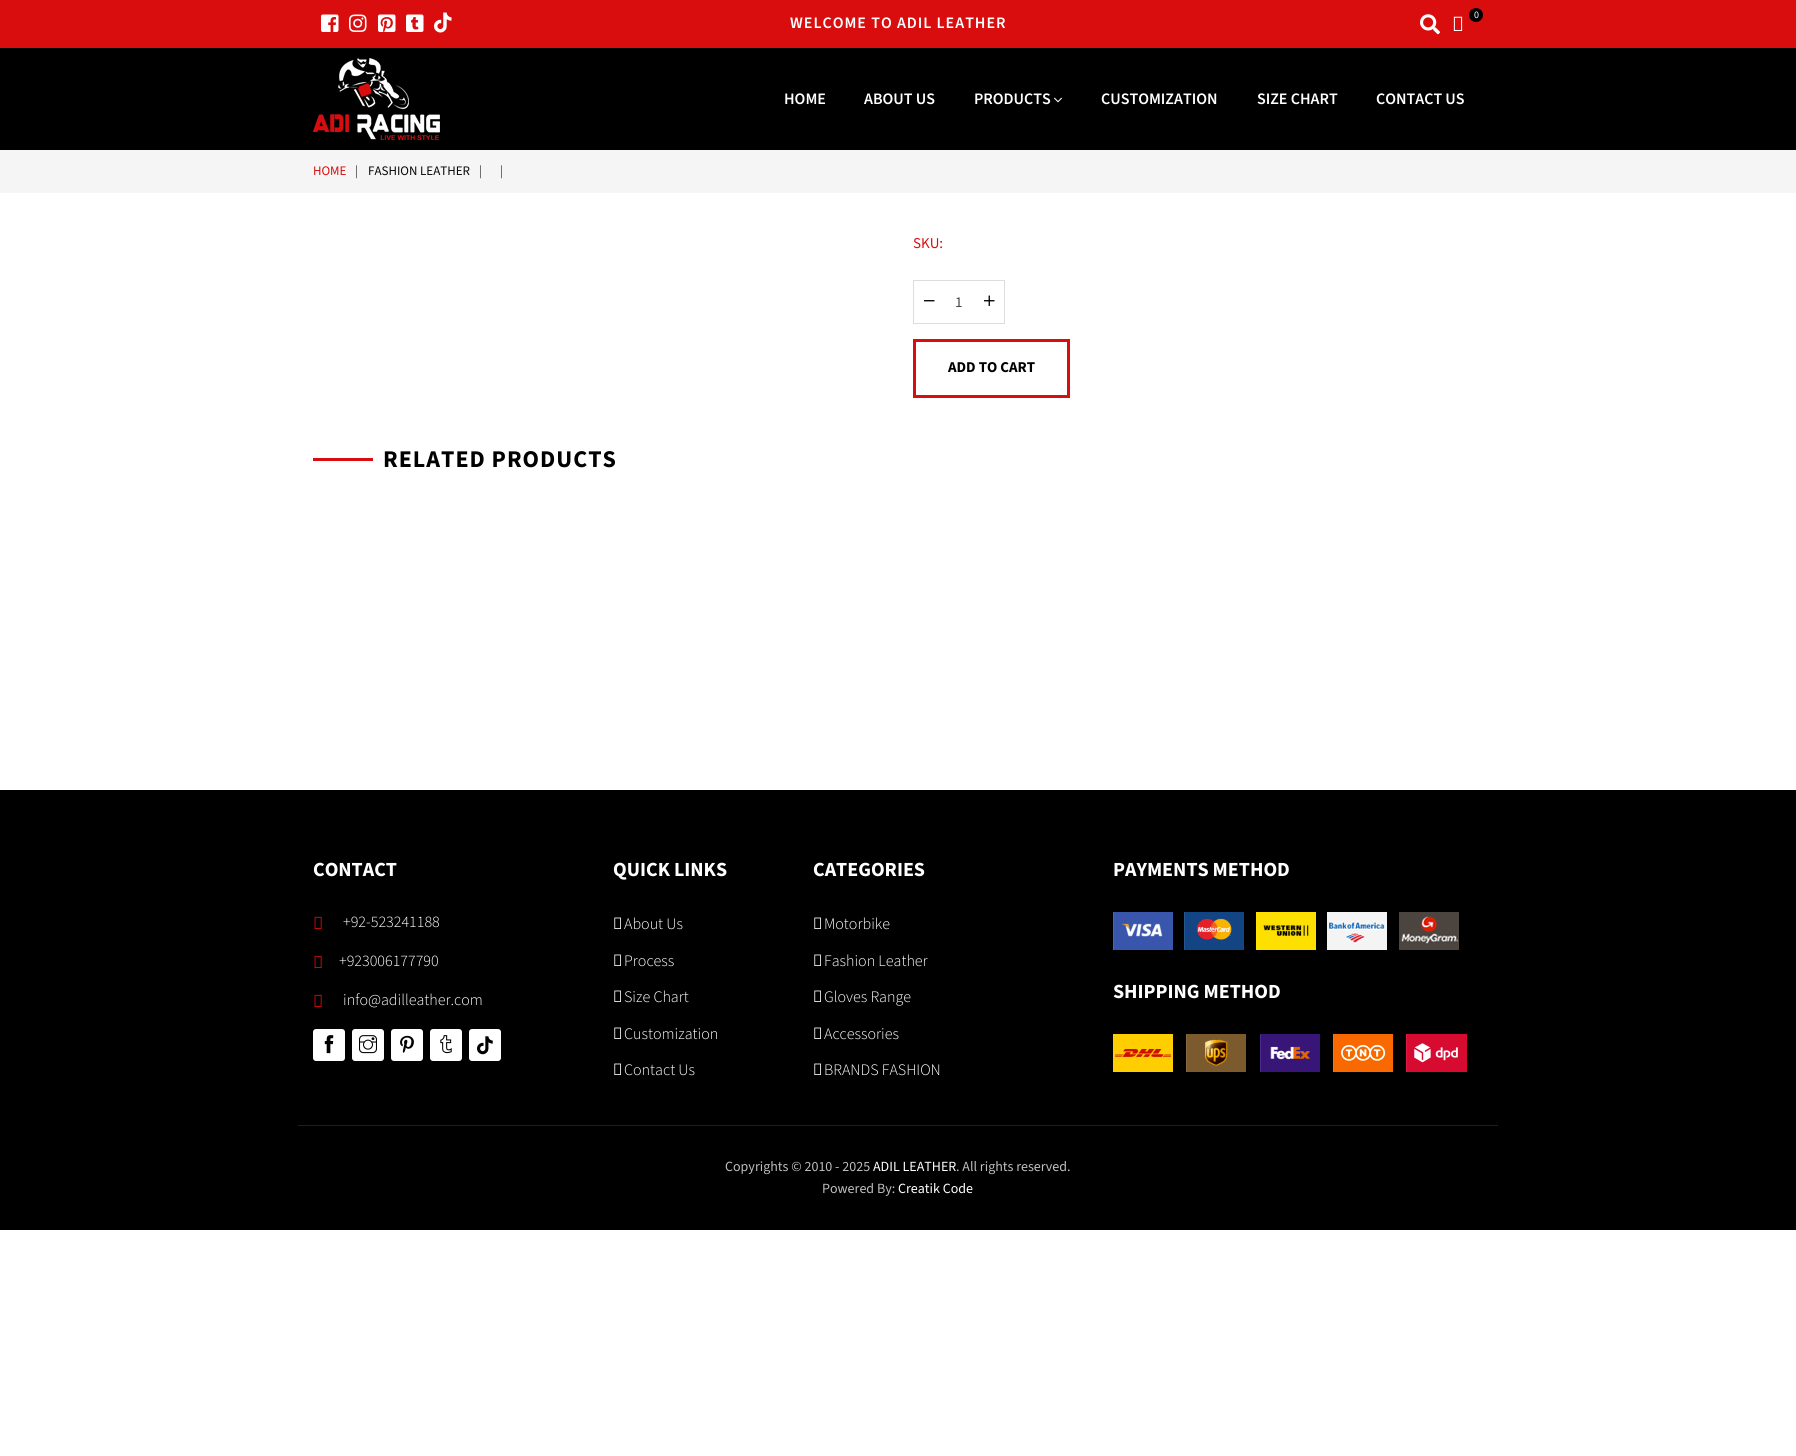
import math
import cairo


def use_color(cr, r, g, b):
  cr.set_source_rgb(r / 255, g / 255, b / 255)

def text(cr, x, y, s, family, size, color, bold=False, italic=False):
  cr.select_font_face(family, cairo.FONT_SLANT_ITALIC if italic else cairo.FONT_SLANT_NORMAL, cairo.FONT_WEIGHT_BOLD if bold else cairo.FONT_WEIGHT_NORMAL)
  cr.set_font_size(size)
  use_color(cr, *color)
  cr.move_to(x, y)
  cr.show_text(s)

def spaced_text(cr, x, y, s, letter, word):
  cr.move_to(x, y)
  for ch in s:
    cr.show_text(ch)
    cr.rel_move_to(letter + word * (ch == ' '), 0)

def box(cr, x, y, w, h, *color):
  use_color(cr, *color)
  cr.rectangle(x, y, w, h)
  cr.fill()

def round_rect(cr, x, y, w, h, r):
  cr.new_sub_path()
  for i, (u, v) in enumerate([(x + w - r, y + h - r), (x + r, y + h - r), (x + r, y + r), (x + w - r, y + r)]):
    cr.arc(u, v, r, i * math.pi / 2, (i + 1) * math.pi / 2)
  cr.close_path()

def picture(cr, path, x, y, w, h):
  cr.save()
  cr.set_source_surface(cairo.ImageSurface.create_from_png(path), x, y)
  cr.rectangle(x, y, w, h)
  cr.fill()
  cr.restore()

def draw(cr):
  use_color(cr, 255, 255, 255)
  cr.paint()
  box(cr, 0, 0, 1796, 48, 217, 13, 13)
  picture(cr, "img_01.png", 321, 14, 18, 18)
  picture(cr, "img_02.png", 349, 14, 18, 18)
  picture(cr, "img_03.png", 378, 14, 18, 18)
  picture(cr, "img_04.png", 406, 14, 18, 18)
  picture(cr, "img_05.png", 434, 12, 18, 21)
  picture(cr, "img_06.png", 1420, 14, 20, 21)
  use_color(cr, 0, 0, 0)
  cr.arc(1476, 15, 7, 0, 2 * math.pi)
  cr.fill()
  picture(cr, "img_07.png", 1453, 16, 10, 15)
  box(cr, 0, 48, 1796, 102, 0, 0, 0)
  picture(cr, "img_08.png", 313, 58, 127, 82)
  picture(cr, "img_09.png", 1054, 97, 8, 6)
  box(cr, 0, 150, 1796, 43, 245, 245, 245)
  cr.rectangle(913.5, 280.5, 91, 43)
  use_color(cr, 221, 221, 221)
  cr.set_line_width(1)
  cr.stroke()
  picture(cr, "img_10.png", 924, 300, 11, 2)
  picture(cr, "img_11.png", 984, 295, 11, 11)
  cr.rectangle(914.5, 340.5, 154, 56)
  use_color(cr, 217, 13, 13)
  cr.set_line_width(3)
  cr.stroke()
  box(cr, 313, 458, 60, 3, 217, 13, 13)
  box(cr, 0, 790, 1796, 440, 0, 0, 0)
  picture(cr, "img_12.png", 314, 916, 8, 13)
  picture(cr, "img_12.png", 314, 955, 8, 13)
  picture(cr, "img_12.png", 314, 994, 8, 13)
  use_color(cr, 255, 255, 255)
  round_rect(cr, 313, 1029, 32, 32, 3)
  cr.fill()
  picture(cr, "img_13.png", 324, 1035, 10, 19)
  round_rect(cr, 352, 1029, 32, 32, 3)
  cr.fill()
  picture(cr, "img_14.png", 359, 1035, 18, 19)
  round_rect(cr, 391, 1029, 32, 32, 3)
  cr.fill()
  picture(cr, "img_15.png", 400, 1035, 14, 18)
  round_rect(cr, 430, 1029, 32, 32, 3)
  cr.fill()
  picture(cr, "img_16.png", 440, 1035, 12, 19)
  round_rect(cr, 469, 1029, 32, 32, 3)
  cr.fill()
  picture(cr, "img_17.png", 477, 1036, 16, 19)
  picture(cr, "img_18.png", 614, 917, 7, 12)
  picture(cr, "img_18.png", 614, 954, 7, 12)
  picture(cr, "img_18.png", 614, 990, 7, 12)
  picture(cr, "img_18.png", 614, 1027, 7, 12)
  picture(cr, "img_18.png", 614, 1063, 7, 12)
  picture(cr, "img_18.png", 814, 917, 7, 12)
  picture(cr, "img_18.png", 814, 954, 7, 12)
  picture(cr, "img_18.png", 814, 990, 7, 12)
  picture(cr, "img_18.png", 814, 1027, 7, 12)
  picture(cr, "img_18.png", 814, 1063, 7, 12)
  picture(cr, "img_19.png", 1113, 912, 346, 38)
  picture(cr, "img_20.png", 1113, 1034, 354, 38)
  box(cr, 298, 1125, 1200, 1, 31, 31, 31)
  cr.select_font_face("Source Sans 3 SemiBold")
  cr.set_font_size(16)
  use_color(cr, 255, 255, 255)
  spaced_text(cr, 790, 28, "WELCOME TO ADIL LEATHER", 1, 0)
  text(cr, 1474, 18, "0", "Source Sans 3", 10, (255, 255, 255))
  text(cr, 784, 104, "HOME", "Source Sans 3 SemiBold", 16, (255, 255, 255))
  text(cr, 864, 104, "ABOUT US", "Source Sans 3 SemiBold", 16, (255, 255, 255))
  text(cr, 974, 104, "PRODUCTS", "Source Sans 3 SemiBold", 16, (255, 255, 255))
  text(cr, 1101, 104, "CUSTOMIZATION", "Source Sans 3 SemiBold", 16, (255, 255, 255))
  text(cr, 1257, 104, "SIZE CHART", "Source Sans 3 SemiBold", 16, (255, 255, 255))
  text(cr, 1376, 104, "CONTACT US", "Source Sans 3 SemiBold", 16, (255, 255, 255))
  text(cr, 313, 175, "HOME", "Source Sans 3", 13, (217, 13, 13))
  text(cr, 355, 175, "|", "Source Sans 3", 13, (71, 71, 71))
  text(cr, 368, 175, "FASHION LEATHER", "Source Sans 3", 13, (8, 8, 8))
  text(cr, 479, 175, "|", "Source Sans 3", 13, (71, 71, 71))
  text(cr, 500, 175, "|", "Source Sans 3", 13, (71, 71, 71))
  text(cr, 913, 248, "SKU:", "Source Sans 3", 15, (217, 13, 13))
  text(cr, 955, 307, "1", "Source Sans 3", 15, (71, 71, 71))
  text(cr, 948, 372, "ADD TO CART", "Source Sans 3", 15, (0, 0, 0), bold=True)
  cr.set_font_size(24)
  spaced_text(cr, 383, 467, "RELATED PRODUCTS", 1, 0)
  text(cr, 313, 876, "CONTACT", "Source Sans 3", 20, (255, 255, 255), bold=True)
  text(cr, 343, 927, "+92-523241188", "Source Sans 3 Light", 16, (255, 255, 255))
  text(cr, 339, 966, "+923006177790", "Source Sans 3 Light", 16, (255, 255, 255))
  text(cr, 343, 1005, "info@adilleather.com", "Source Sans 3 Light", 16, (255, 255, 255))
  text(cr, 613, 876, "QUICK LINKS", "Source Sans 3", 20, (255, 255, 255), bold=True)
  text(cr, 624, 929, "About Us", "Source Sans 3 Light", 16, (255, 255, 255))
  text(cr, 624, 966, "Process", "Source Sans 3 Light", 16, (255, 255, 255))
  text(cr, 624, 1002, "Size Chart", "Source Sans 3 Light", 16, (255, 255, 255))
  text(cr, 624, 1039, "Customization", "Source Sans 3 Light", 16, (255, 255, 255))
  text(cr, 624, 1075, "Contact Us", "Source Sans 3 Light", 16, (255, 255, 255))
  text(cr, 813, 876, "CATEGORIES", "Source Sans 3", 20, (255, 255, 255), bold=True)
  text(cr, 824, 929, "Motorbike", "Source Sans 3 Light", 16, (255, 255, 255))
  text(cr, 824, 966, "Fashion Leather", "Source Sans 3 Light", 16, (255, 255, 255))
  text(cr, 824, 1002, "Gloves Range", "Source Sans 3 Light", 16, (255, 255, 255))
  text(cr, 824, 1039, "Accessories", "Source Sans 3 Light", 16, (255, 255, 255))
  text(cr, 824, 1075, "BRANDS FASHION", "Source Sans 3 Light", 16, (255, 255, 255))
  text(cr, 1113, 876, "PAYMENTS METHOD", "Source Sans 3", 20, (255, 255, 255), bold=True)
  text(cr, 1113, 998, "SHIPPING METHOD", "Source Sans 3", 20, (255, 255, 255), bold=True)
  text(cr, 725, 1171, "Copyrights © 2010 - 2025", "Source Sans 3", 14, (190, 190, 190))
  text(cr, 873, 1171, "ADIL LEATHER", "Source Sans 3", 14, (255, 255, 255))
  text(cr, 956, 1171, ". All rights reserved.", "Source Sans 3", 14, (190, 190, 190))
  text(cr, 822, 1193, "Powered By:", "Source Sans 3", 14, (190, 190, 190))
  text(cr, 898, 1193, "Creatik Code", "Source Sans 3", 14, (255, 255, 255))


surface = cairo.ImageSurface(cairo.FORMAT_RGB24, 1796, 1456)
cr = cairo.Context(surface)
options = cairo.FontOptions()
options.set_hint_metrics(cairo.HINT_METRICS_OFF)
options.set_hint_style(cairo.HINT_STYLE_NONE)
cr.set_font_options(options)
cr.set_miter_limit(4)
draw(cr)
surface.write_to_png("out.png")
